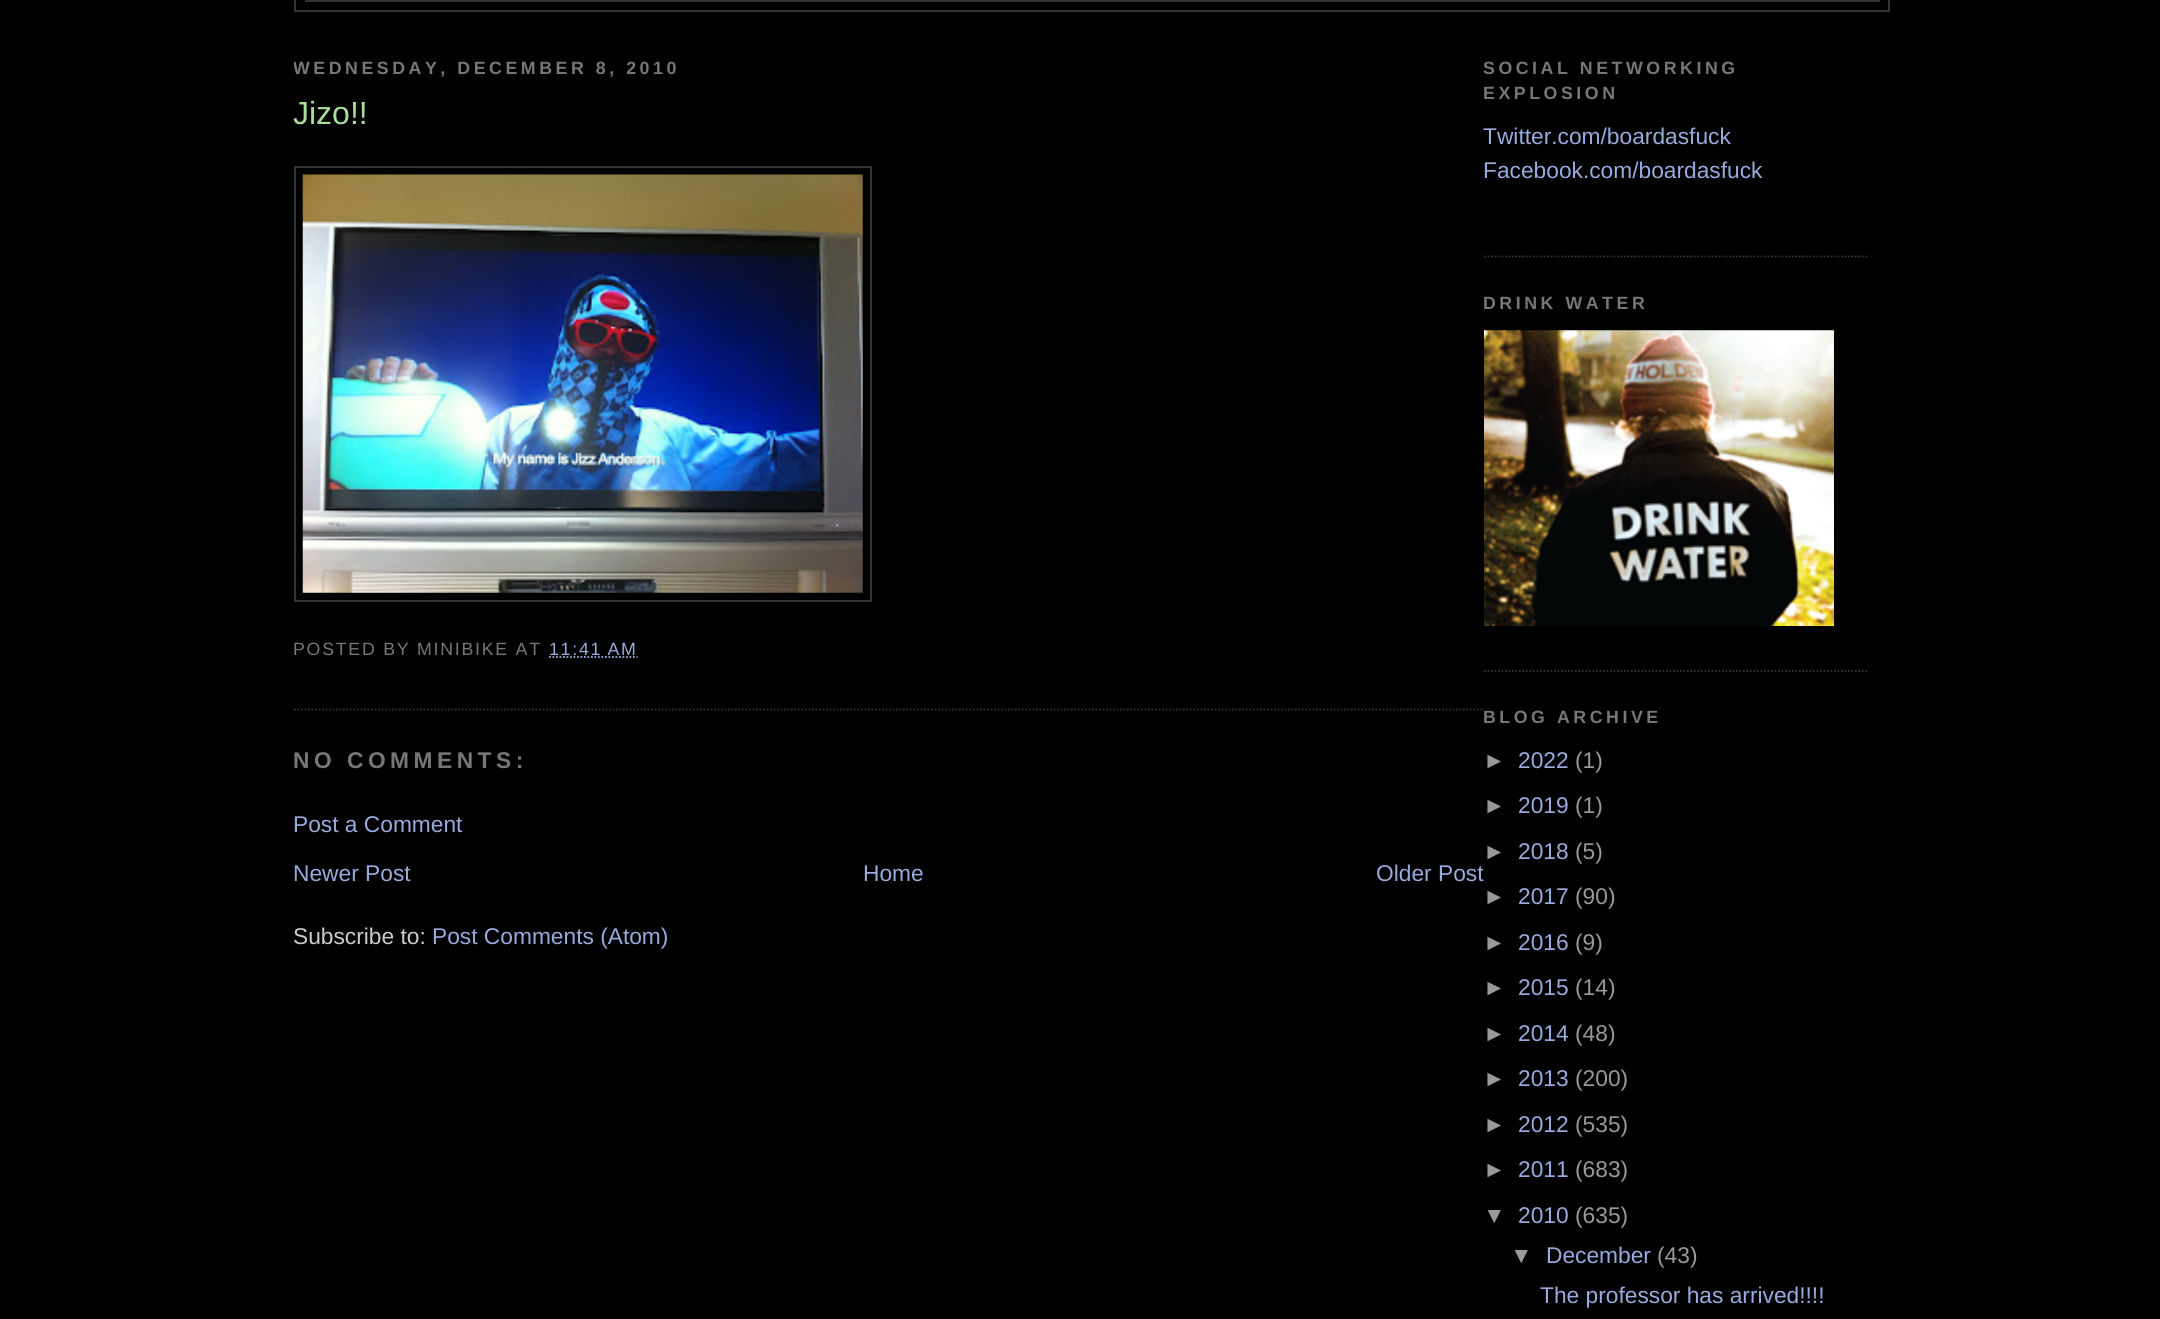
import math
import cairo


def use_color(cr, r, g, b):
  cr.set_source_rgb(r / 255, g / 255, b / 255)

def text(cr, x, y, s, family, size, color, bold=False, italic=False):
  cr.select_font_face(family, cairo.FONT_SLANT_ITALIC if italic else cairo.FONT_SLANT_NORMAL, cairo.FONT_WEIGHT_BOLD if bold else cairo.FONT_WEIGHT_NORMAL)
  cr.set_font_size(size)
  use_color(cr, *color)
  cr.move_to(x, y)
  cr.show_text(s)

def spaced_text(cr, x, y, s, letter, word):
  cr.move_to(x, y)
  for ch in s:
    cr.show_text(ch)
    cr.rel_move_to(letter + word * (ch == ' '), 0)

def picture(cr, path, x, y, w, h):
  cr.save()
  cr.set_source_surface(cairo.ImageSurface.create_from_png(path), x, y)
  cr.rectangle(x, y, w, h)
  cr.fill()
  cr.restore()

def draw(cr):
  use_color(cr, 0, 0, 0)
  cr.paint()
  cr.rectangle(295, -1, 1594, 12)
  use_color(cr, 51, 51, 51)
  cr.stroke()
  cr.rectangle(306, -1, 1573, 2)
  cr.stroke()
  cr.new_path()
  cr.move_to(294, 709.5)
  cr.line_to(1484, 709.5)
  cr.set_line_width(1.8)
  cr.set_dash([1.75, 1.75])
  cr.stroke()
  cr.rectangle(295, 167, 576, 434)
  cr.set_line_width(2)
  cr.set_dash([])
  cr.stroke()
  picture(cr, "img_01.png", 302, 174, 561, 419)
  cr.new_path()
  cr.move_to(549, 657)
  cr.line_to(637.5, 657)
  use_color(cr, 153, 170, 221)
  cr.set_line_width(1.8)
  cr.set_dash([1.75, 1.75])
  cr.stroke()
  cr.new_path()
  cr.move_to(1484, 256.5)
  cr.line_to(1869, 256.5)
  use_color(cr, 51, 51, 51)
  cr.stroke()
  cr.new_path()
  cr.move_to(1484, 671)
  cr.line_to(1869, 671)
  cr.stroke()
  picture(cr, "img_02.png", 1484, 330, 350, 296)
  cr.save()
  cr.rectangle(294, 30, 1190, 1004)
  cr.clip()
  cr.select_font_face("Liberation Sans", cairo.FONT_SLANT_NORMAL, cairo.FONT_WEIGHT_BOLD)
  cr.set_font_size(17.75)
  use_color(cr, 119, 119, 119)
  spaced_text(cr, 293, 74, "WEDNESDAY, DECEMBER 8, 2010", 3.55, 0)
  cr.restore()
  text(cr, 293, 124, "Jizo!!", "Liberation Sans", 32, (170, 221, 153))
  cr.set_font_size(17.75)
  use_color(cr, 119, 119, 119)
  spaced_text(cr, 293, 655, "POSTED BY MINIBIKE AT", 1.75, 0)
  use_color(cr, 153, 170, 221)
  spaced_text(cr, 549, 655, "11:41 AM", 1.75, 0)
  cr.select_font_face("Liberation Sans", cairo.FONT_SLANT_NORMAL, cairo.FONT_WEIGHT_BOLD)
  cr.set_font_size(22.75)
  use_color(cr, 119, 119, 119)
  spaced_text(cr, 293, 768, "NO COMMENTS:", 4.5, 0)
  text(cr, 293, 832, "Post a Comment", "Liberation Sans", 22.75, (153, 170, 221))
  text(cr, 293, 881, "Newer Post", "Liberation Sans", 22.75, (153, 170, 221))
  text(cr, 863, 881, "Home", "Liberation Sans", 22.75, (153, 170, 221))
  text(cr, 1376, 881, "Older Post", "Liberation Sans", 22.75, (153, 170, 221))
  text(cr, 293, 944, "Subscribe to:", "Liberation Sans", 22.75, (204, 204, 204))
  text(cr, 432, 944, "Post Comments (Atom)", "Liberation Sans", 22.75, (153, 170, 221))
  cr.select_font_face("Liberation Sans", cairo.FONT_SLANT_NORMAL, cairo.FONT_WEIGHT_BOLD)
  cr.set_font_size(17.75)
  use_color(cr, 119, 119, 119)
  spaced_text(cr, 1483, 74, "SOCIAL NETWORKING", 3.55, 0)
  spaced_text(cr, 1483, 99, "EXPLOSION", 3.55, 0)
  text(cr, 1483, 144, "Twitter.com/boardasfuck", "Liberation Sans", 22.75, (153, 170, 221))
  text(cr, 1483, 178, "Facebook.com/boardasfuck", "Liberation Sans", 22.75, (153, 170, 221))
  cr.select_font_face("Liberation Sans", cairo.FONT_SLANT_NORMAL, cairo.FONT_WEIGHT_BOLD)
  cr.set_font_size(17.75)
  use_color(cr, 119, 119, 119)
  spaced_text(cr, 1483, 309, "DRINK WATER", 3.55, 0)
  spaced_text(cr, 1483, 723, "BLOG ARCHIVE", 3.55, 0)
  text(cr, 1483, 768, "►", "Liberation Sans", 22.75, (153, 153, 153))
  text(cr, 1518, 768, "2022", "Liberation Sans", 22.75, (153, 170, 221))
  text(cr, 1575, 768, "(1)", "Liberation Sans", 22.75, (153, 153, 153))
  text(cr, 1483, 813, "►", "Liberation Sans", 22.75, (153, 153, 153))
  text(cr, 1518, 813, "2019", "Liberation Sans", 22.75, (153, 170, 221))
  text(cr, 1575, 813, "(1)", "Liberation Sans", 22.75, (153, 153, 153))
  text(cr, 1483, 859, "►", "Liberation Sans", 22.75, (153, 153, 153))
  text(cr, 1518, 859, "2018", "Liberation Sans", 22.75, (153, 170, 221))
  text(cr, 1575, 859, "(5)", "Liberation Sans", 22.75, (153, 153, 153))
  text(cr, 1483, 904, "►", "Liberation Sans", 22.75, (153, 153, 153))
  text(cr, 1518, 904, "2017", "Liberation Sans", 22.75, (153, 170, 221))
  text(cr, 1575, 904, "(90)", "Liberation Sans", 22.75, (153, 153, 153))
  text(cr, 1483, 950, "►", "Liberation Sans", 22.75, (153, 153, 153))
  text(cr, 1518, 950, "2016", "Liberation Sans", 22.75, (153, 170, 221))
  text(cr, 1575, 950, "(9)", "Liberation Sans", 22.75, (153, 153, 153))
  text(cr, 1483, 995, "►", "Liberation Sans", 22.75, (153, 153, 153))
  text(cr, 1518, 995, "2015", "Liberation Sans", 22.75, (153, 170, 221))
  text(cr, 1575, 995, "(14)", "Liberation Sans", 22.75, (153, 153, 153))
  text(cr, 1483, 1041, "►", "Liberation Sans", 22.75, (153, 153, 153))
  text(cr, 1518, 1041, "2014", "Liberation Sans", 22.75, (153, 170, 221))
  text(cr, 1575, 1041, "(48)", "Liberation Sans", 22.75, (153, 153, 153))
  text(cr, 1483, 1086, "►", "Liberation Sans", 22.75, (153, 153, 153))
  text(cr, 1518, 1086, "2013", "Liberation Sans", 22.75, (153, 170, 221))
  text(cr, 1575, 1086, "(200)", "Liberation Sans", 22.75, (153, 153, 153))
  text(cr, 1483, 1132, "►", "Liberation Sans", 22.75, (153, 153, 153))
  text(cr, 1518, 1132, "2012", "Liberation Sans", 22.75, (153, 170, 221))
  text(cr, 1575, 1132, "(535)", "Liberation Sans", 22.75, (153, 153, 153))
  text(cr, 1483, 1177, "►", "Liberation Sans", 22.75, (153, 153, 153))
  text(cr, 1518, 1177, "2011", "Liberation Sans", 22.75, (153, 170, 221))
  text(cr, 1575, 1177, "(683)", "Liberation Sans", 22.75, (153, 153, 153))
  text(cr, 1483, 1223, "▼", "Liberation Sans", 22.75, (153, 153, 153))
  text(cr, 1518, 1223, "2010", "Liberation Sans", 22.75, (153, 170, 221))
  text(cr, 1575, 1223, "(635)", "Liberation Sans", 22.75, (153, 153, 153))
  text(cr, 1510, 1263, "▼", "Liberation Sans", 22.75, (153, 153, 153))
  text(cr, 1546, 1263, "December", "Liberation Sans", 22.75, (153, 170, 221))
  text(cr, 1657, 1263, "(43)", "Liberation Sans", 22.75, (153, 153, 153))
  text(cr, 1540, 1303, "The professor has arrived!!!!", "Liberation Sans", 22.75, (153, 170, 221))


surface = cairo.ImageSurface(cairo.FORMAT_RGB24, 2160, 1319)
cr = cairo.Context(surface)
options = cairo.FontOptions()
options.set_hint_metrics(cairo.HINT_METRICS_OFF)
options.set_hint_style(cairo.HINT_STYLE_NONE)
cr.set_font_options(options)
cr.set_miter_limit(4)
draw(cr)
surface.write_to_png("out.png")
